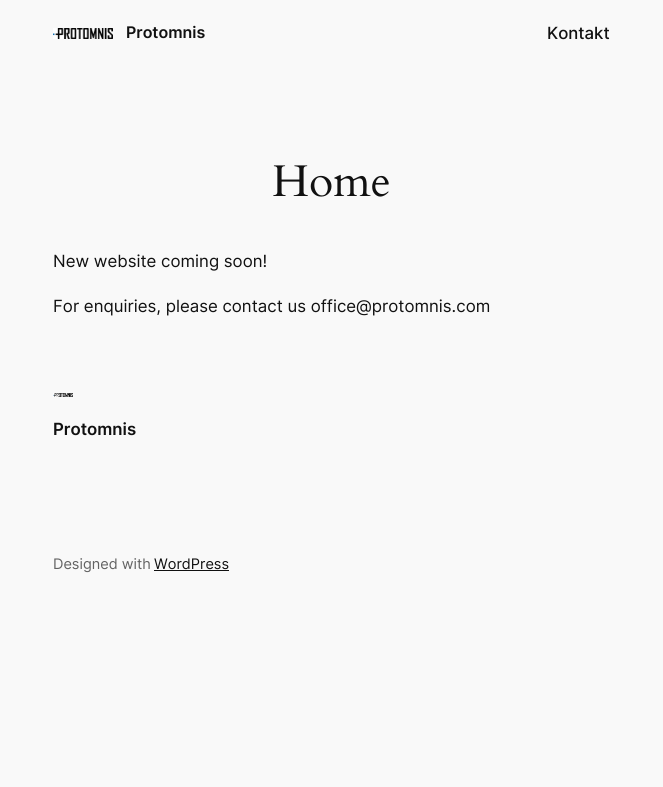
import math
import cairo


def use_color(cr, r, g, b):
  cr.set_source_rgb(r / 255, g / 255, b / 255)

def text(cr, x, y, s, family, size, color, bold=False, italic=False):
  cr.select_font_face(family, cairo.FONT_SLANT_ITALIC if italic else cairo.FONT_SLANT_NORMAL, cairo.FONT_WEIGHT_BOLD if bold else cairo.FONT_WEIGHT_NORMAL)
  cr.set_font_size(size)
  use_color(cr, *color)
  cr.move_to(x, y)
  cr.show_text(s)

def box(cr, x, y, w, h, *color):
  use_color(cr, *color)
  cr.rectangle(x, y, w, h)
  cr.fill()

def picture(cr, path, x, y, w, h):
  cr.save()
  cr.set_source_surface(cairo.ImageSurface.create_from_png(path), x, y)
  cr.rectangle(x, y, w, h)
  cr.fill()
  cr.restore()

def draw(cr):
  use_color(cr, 249, 249, 249)
  cr.paint()
  picture(cr, "img_01.png", 53, 28, 60, 11)
  picture(cr, "img_02.png", 273, 165, 116, 32)
  picture(cr, "img_03.png", 53, 393, 20, 4)
  box(cr, 154, 570, 75, 1, 17, 17, 17)
  text(cr, 126, 38, "Protomnis", "Inter SemiBold", 16, (17, 17, 17))
  text(cr, 547, 39, "Kontakt", "Inter Medium", 16.8, (17, 17, 17))
  text(cr, 53, 267, "New website coming soon!", "Inter", 16.8, (17, 17, 17))
  text(cr, 53, 312, "For enquiries, please contact us office@protomnis.com", "Inter", 16.8, (17, 17, 17))
  text(cr, 53, 435, "Protomnis", "Inter SemiBold", 16.8, (17, 17, 17))
  text(cr, 53, 569, "Designed with", "Inter", 14.5, (99, 99, 99))
  text(cr, 154, 569, "WordPress", "Inter", 14.5, (17, 17, 17))


surface = cairo.ImageSurface(cairo.FORMAT_RGB24, 663, 787)
cr = cairo.Context(surface)
options = cairo.FontOptions()
options.set_hint_metrics(cairo.HINT_METRICS_OFF)
options.set_hint_style(cairo.HINT_STYLE_NONE)
cr.set_font_options(options)
cr.set_miter_limit(4)
draw(cr)
surface.write_to_png("out.png")
